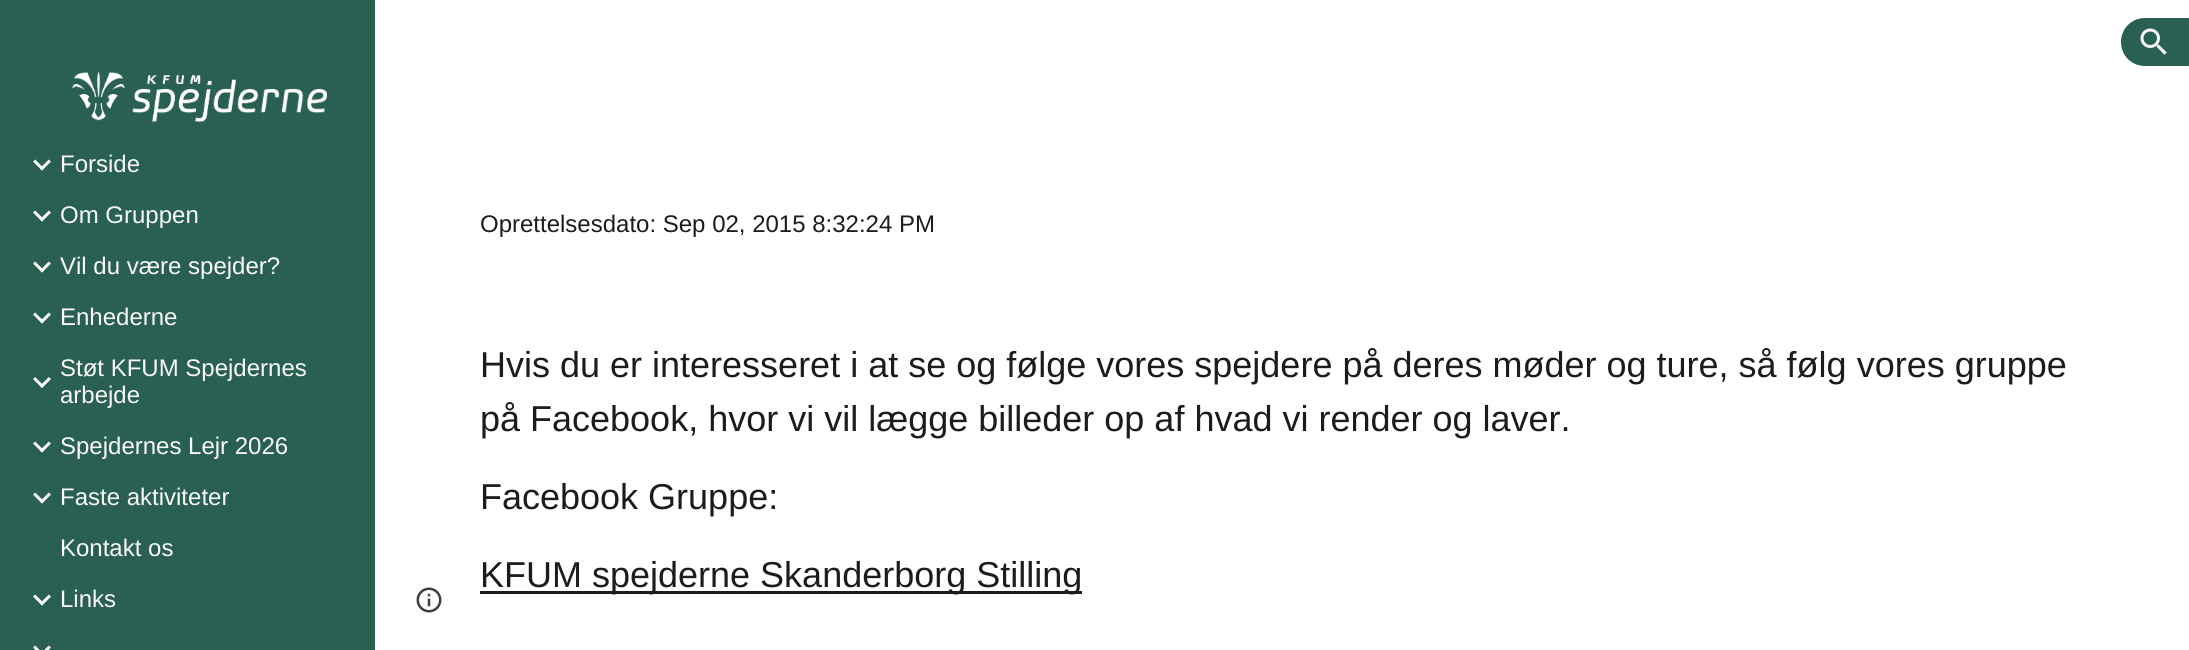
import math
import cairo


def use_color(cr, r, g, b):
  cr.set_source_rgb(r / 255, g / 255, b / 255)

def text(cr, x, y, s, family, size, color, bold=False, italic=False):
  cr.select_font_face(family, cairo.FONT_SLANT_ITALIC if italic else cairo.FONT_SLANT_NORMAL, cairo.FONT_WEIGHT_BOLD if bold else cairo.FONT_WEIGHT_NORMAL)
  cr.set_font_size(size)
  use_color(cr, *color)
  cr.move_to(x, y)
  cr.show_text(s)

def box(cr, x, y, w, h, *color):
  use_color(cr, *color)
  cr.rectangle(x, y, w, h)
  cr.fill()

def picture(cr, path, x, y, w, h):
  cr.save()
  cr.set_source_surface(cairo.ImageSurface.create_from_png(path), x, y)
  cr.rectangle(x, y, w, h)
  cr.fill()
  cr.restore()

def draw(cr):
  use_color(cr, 255, 255, 255)
  cr.paint()
  use_color(cr, 41, 96, 82)
  cr.new_path()
  cr.move_to(2145, 18)
  cr.line_to(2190, 18)
  cr.line_to(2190, 66)
  cr.line_to(2145, 66)
  cr.curve_to(2131.5, 66, 2121, 55.5, 2121, 42)
  cr.curve_to(2121, 28.5, 2131.5, 18, 2145, 18)
  cr.close_path()
  cr.fill()
  picture(cr, "img_01.png", 2140, 28, 27, 27)
  box(cr, 0, 0, 375, 650, 41, 96, 82)
  picture(cr, "img_02.png", 72, 72, 255, 50)
  picture(cr, "img_03.png", 33, 159, 18, 12)
  picture(cr, "img_03.png", 33, 210, 18, 12)
  picture(cr, "img_03.png", 33, 261, 18, 12)
  picture(cr, "img_03.png", 33, 312, 18, 12)
  picture(cr, "img_04.png", 33, 377, 18, 11)
  picture(cr, "img_03.png", 33, 441, 18, 12)
  picture(cr, "img_03.png", 33, 492, 18, 12)
  picture(cr, "img_03.png", 33, 594, 18, 12)
  picture(cr, "img_05.png", 33, 645, 18, 5)
  box(cr, 480, 591, 602, 3, 28, 28, 28)
  picture(cr, "img_06.png", 416, 587, 26, 26)
  text(cr, 60, 172, "Forside", "Liberation Sans", 24, (249, 249, 249))
  text(cr, 60, 223, "Om Gruppen", "Liberation Sans", 24, (249, 249, 249))
  text(cr, 60, 274, "Vil du være spejder?", "Liberation Sans", 24, (249, 249, 249))
  text(cr, 60, 325, "Enhederne", "Liberation Sans", 24, (249, 249, 249))
  text(cr, 60, 376, "Støt KFUM Spejdernes", "Liberation Sans", 24, (249, 249, 249))
  text(cr, 60, 403, "arbejde", "Liberation Sans", 24, (249, 249, 249))
  text(cr, 60, 454, "Spejdernes Lejr 2026", "Liberation Sans", 24, (249, 249, 249))
  text(cr, 60, 505, "Faste aktiviteter", "Liberation Sans", 24, (249, 249, 249))
  text(cr, 60, 556, "Kontakt os", "Liberation Sans", 24, (249, 249, 249))
  text(cr, 60, 607, "Links", "Liberation Sans", 24, (249, 249, 249))
  text(cr, 480, 232, "Oprettelsesdato: Sep 02, 2015 8:32:24 PM", "Liberation Sans", 24, (28, 28, 28))
  text(cr, 480, 377, "Hvis du er interesseret i at se og følge vores spejdere på deres møder og ture, så følg vores gruppe", "Liberation Sans", 36, (28, 28, 28))
  text(cr, 480, 431, "på Facebook, hvor vi vil lægge billeder op af hvad vi render og laver.", "Liberation Sans", 36, (28, 28, 28))
  text(cr, 480, 509, "Facebook Gruppe:", "Liberation Sans", 36, (28, 28, 28))
  text(cr, 480, 587, "KFUM spejderne Skanderborg Stilling", "Liberation Sans", 36, (28, 28, 28))


surface = cairo.ImageSurface(cairo.FORMAT_RGB24, 2189, 650)
cr = cairo.Context(surface)
options = cairo.FontOptions()
options.set_hint_metrics(cairo.HINT_METRICS_OFF)
options.set_hint_style(cairo.HINT_STYLE_NONE)
cr.set_font_options(options)
cr.set_miter_limit(4)
draw(cr)
surface.write_to_png("out.png")
